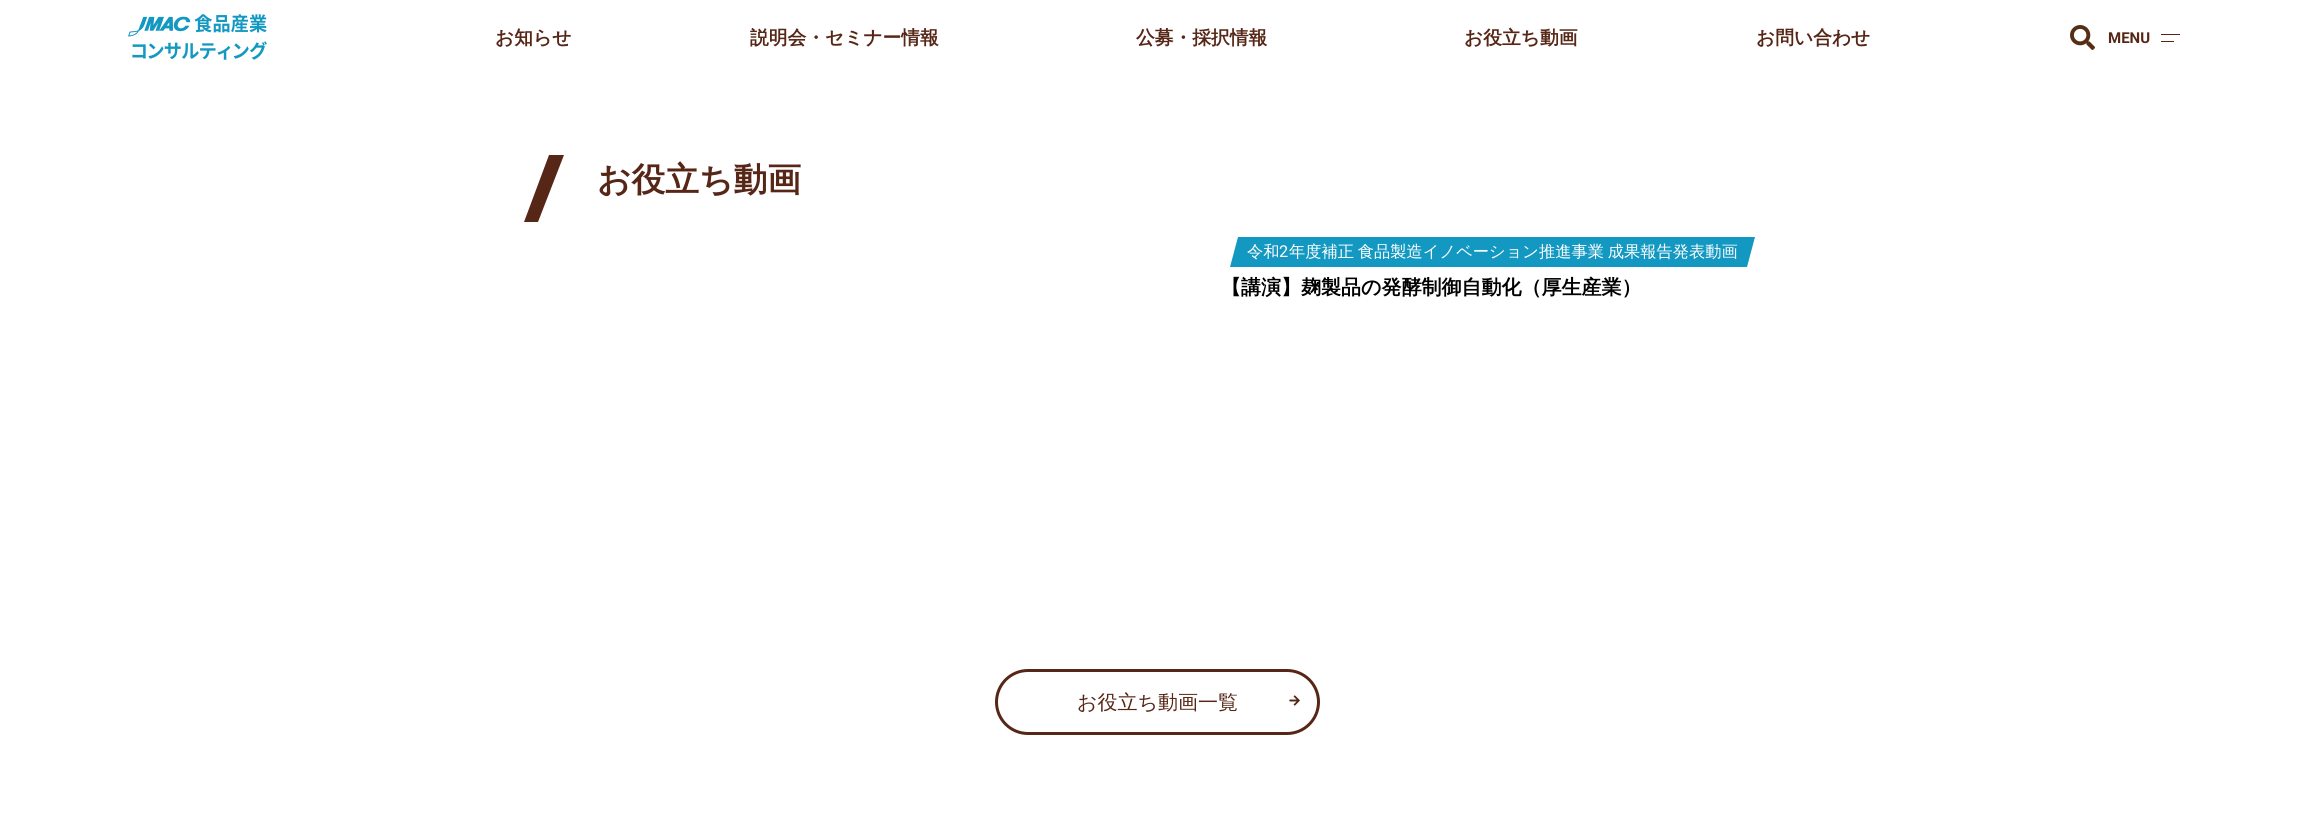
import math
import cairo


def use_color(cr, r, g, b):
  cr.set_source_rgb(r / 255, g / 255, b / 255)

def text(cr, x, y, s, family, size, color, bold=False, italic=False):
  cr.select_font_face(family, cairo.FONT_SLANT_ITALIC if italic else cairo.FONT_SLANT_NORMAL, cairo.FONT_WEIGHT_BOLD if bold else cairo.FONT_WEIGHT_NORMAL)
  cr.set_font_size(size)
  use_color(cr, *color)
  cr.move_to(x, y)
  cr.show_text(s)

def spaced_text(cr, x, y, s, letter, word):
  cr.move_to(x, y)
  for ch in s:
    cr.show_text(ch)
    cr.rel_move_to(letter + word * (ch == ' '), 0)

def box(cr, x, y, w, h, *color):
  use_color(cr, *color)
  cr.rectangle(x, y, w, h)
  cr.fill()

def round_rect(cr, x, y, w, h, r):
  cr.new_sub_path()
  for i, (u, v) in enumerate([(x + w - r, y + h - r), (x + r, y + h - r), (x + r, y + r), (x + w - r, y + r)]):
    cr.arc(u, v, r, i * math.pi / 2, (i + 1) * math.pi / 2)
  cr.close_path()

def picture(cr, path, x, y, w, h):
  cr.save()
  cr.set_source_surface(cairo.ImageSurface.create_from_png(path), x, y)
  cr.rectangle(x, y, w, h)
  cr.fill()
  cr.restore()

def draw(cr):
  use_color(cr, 255, 255, 255)
  cr.paint()
  picture(cr, "img_01.png", 128, 14, 139, 46)
  picture(cr, "img_02.png", 2070, 25, 25, 25)
  box(cr, 2161, 34, 19, 1, 86, 38, 22)
  box(cr, 2161, 41, 13, 1, 86, 38, 22)
  cr.new_path()
  cr.move_to(538, 222)
  cr.line_to(524, 222)
  cr.line_to(549, 155)
  cr.line_to(564, 155)
  cr.close_path()
  cr.fill()
  use_color(cr, 19, 152, 194)
  cr.new_path()
  cr.move_to(1238, 237)
  cr.line_to(1755, 237)
  cr.line_to(1747, 267)
  cr.line_to(1230, 267)
  cr.close_path()
  cr.fill()
  round_rect(cr, 996.5, 670.5, 322, 63, 31.5)
  use_color(cr, 86, 38, 22)
  cr.set_line_width(3)
  cr.stroke()
  picture(cr, "img_03.png", 1289, 695, 11, 11)
  text(cr, 495, 44, "お知らせ", "WenQuanYi Zen Hei", 18.75, (86, 38, 22), bold=True)
  text(cr, 750, 44, "説明会・セミナー情報", "WenQuanYi Zen Hei", 18.75, (86, 38, 22), bold=True)
  text(cr, 1136, 44, "公募・採択情報", "WenQuanYi Zen Hei", 18.75, (86, 38, 22), bold=True)
  text(cr, 1464, 44, "お役立ち動画", "WenQuanYi Zen Hei", 18.75, (86, 38, 22), bold=True)
  text(cr, 1756, 44, "お問い合わせ", "WenQuanYi Zen Hei", 18.75, (86, 38, 22), bold=True)
  text(cr, 2108, 43, "MENU", "Roboto", 15, (86, 38, 22), bold=True)
  text(cr, 597, 191, "お役立ち動画", "WenQuanYi Zen Hei", 33.75, (86, 38, 22), bold=True)
  text(cr, 1247, 257, "令和", "WenQuanYi Zen Hei Medium", 16.25, (255, 255, 255))
  text(cr, 1279, 257, "2", "Roboto", 16.25, (255, 255, 255))
  cr.select_font_face("WenQuanYi Zen Hei Medium")
  spaced_text(cr, 1289, 257, "年度補正 食品製造イノベーション推進事業 成果報告発表動画", 0, -1)
  text(cr, 1221, 294, "【講演】麹製品の発酵制御自動化（厚生産業）", "WenQuanYi Zen Hei", 20, (0, 0, 0), bold=True)
  text(cr, 1077, 709, "お役立ち動画一覧", "WenQuanYi Zen Hei Medium", 20, (86, 38, 22))


surface = cairo.ImageSurface(cairo.FORMAT_RGB24, 2314, 837)
cr = cairo.Context(surface)
options = cairo.FontOptions()
options.set_hint_metrics(cairo.HINT_METRICS_OFF)
options.set_hint_style(cairo.HINT_STYLE_NONE)
cr.set_font_options(options)
cr.set_miter_limit(4)
draw(cr)
surface.write_to_png("out.png")
